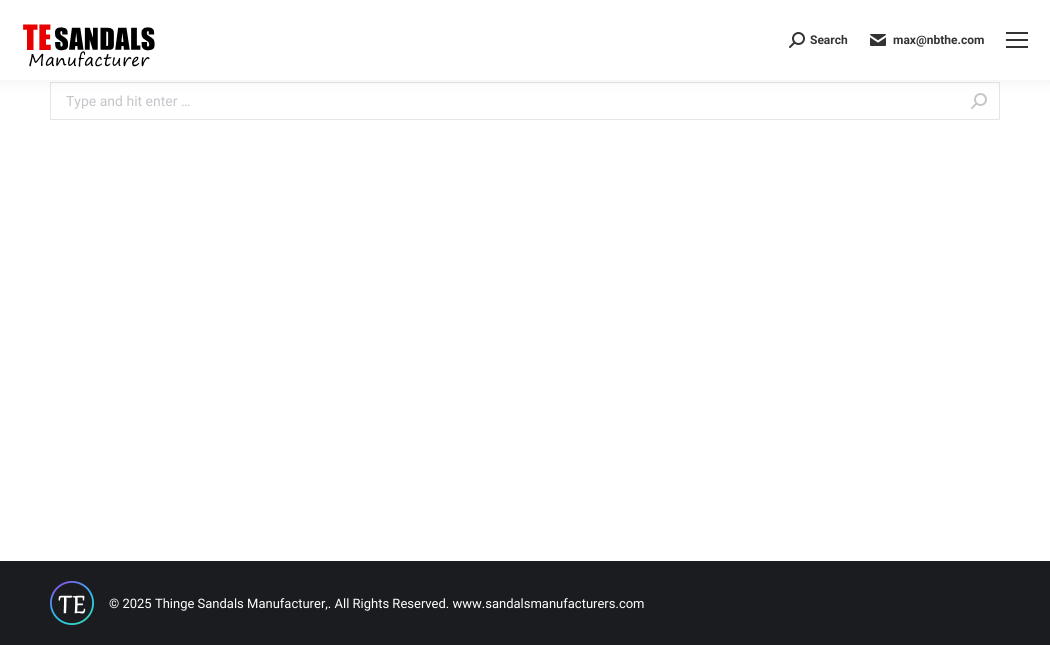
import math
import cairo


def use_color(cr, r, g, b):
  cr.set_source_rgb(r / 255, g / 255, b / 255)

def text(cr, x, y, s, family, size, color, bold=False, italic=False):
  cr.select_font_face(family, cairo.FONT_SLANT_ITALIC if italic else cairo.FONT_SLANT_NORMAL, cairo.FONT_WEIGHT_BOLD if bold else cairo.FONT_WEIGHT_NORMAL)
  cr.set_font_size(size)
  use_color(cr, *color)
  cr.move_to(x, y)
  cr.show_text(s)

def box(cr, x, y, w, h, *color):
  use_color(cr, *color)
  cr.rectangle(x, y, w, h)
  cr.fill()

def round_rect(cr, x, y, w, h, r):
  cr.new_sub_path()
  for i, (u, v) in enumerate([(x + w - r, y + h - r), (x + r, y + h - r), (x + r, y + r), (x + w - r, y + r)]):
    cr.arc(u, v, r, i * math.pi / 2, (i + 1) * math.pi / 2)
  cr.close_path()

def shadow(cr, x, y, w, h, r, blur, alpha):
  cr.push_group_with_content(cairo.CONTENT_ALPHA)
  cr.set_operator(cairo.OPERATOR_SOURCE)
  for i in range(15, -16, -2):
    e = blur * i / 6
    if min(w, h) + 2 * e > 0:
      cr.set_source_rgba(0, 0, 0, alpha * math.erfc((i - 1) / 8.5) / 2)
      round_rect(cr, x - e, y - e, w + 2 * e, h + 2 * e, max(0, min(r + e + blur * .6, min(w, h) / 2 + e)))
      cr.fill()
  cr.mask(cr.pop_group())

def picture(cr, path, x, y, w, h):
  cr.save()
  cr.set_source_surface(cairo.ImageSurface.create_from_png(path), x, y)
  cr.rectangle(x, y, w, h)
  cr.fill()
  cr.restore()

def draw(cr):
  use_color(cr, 255, 255, 255)
  cr.paint()
  round_rect(cr, 50.5, 82.5, 949, 37, 0.5)
  use_color(cr, 229, 229, 229)
  cr.set_line_width(1)
  cr.stroke()
  picture(cr, "img_04.png", 971, 93, 16, 16)
  use_color(cr, 0, 0, 0)
  shadow(cr, -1, -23, 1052, 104, 0, 7.5, 0.07)
  box(cr, 0, 0, 1050, 80, 255, 255, 255)
  picture(cr, "img_01.png", 23, 24, 132, 43)
  picture(cr, "img_02.png", 789, 32, 16, 16)
  picture(cr, "img_03.png", 870, 34, 16, 12)
  box(cr, 1006, 32, 22, 2, 51, 51, 51)
  box(cr, 1006, 39, 22, 2, 51, 51, 51)
  box(cr, 1006, 46, 22, 2, 51, 51, 51)
  box(cr, 0, 561, 1050, 84, 26, 28, 32)
  picture(cr, "img_05.png", 50, 581, 44, 44)
  text(cr, 810, 44, "Search", "Roboto", 12, (51, 51, 51), bold=True)
  text(cr, 893, 44, "max@nbthe.com", "Roboto", 12, (51, 51, 51), bold=True)
  text(cr, 66, 106, "Type and hit enter …", "Roboto", 14, (196, 197, 201))
  text(cr, 109, 608, "© 2025 Thinge Sandals Manufacturer,. All Rights Reserved. www.sandalsmanufacturers.com", "Roboto", 13, (255, 255, 255))


surface = cairo.ImageSurface(cairo.FORMAT_RGB24, 1050, 645)
cr = cairo.Context(surface)
options = cairo.FontOptions()
options.set_hint_metrics(cairo.HINT_METRICS_OFF)
options.set_hint_style(cairo.HINT_STYLE_NONE)
cr.set_font_options(options)
cr.set_miter_limit(4)
draw(cr)
surface.write_to_png("out.png")
